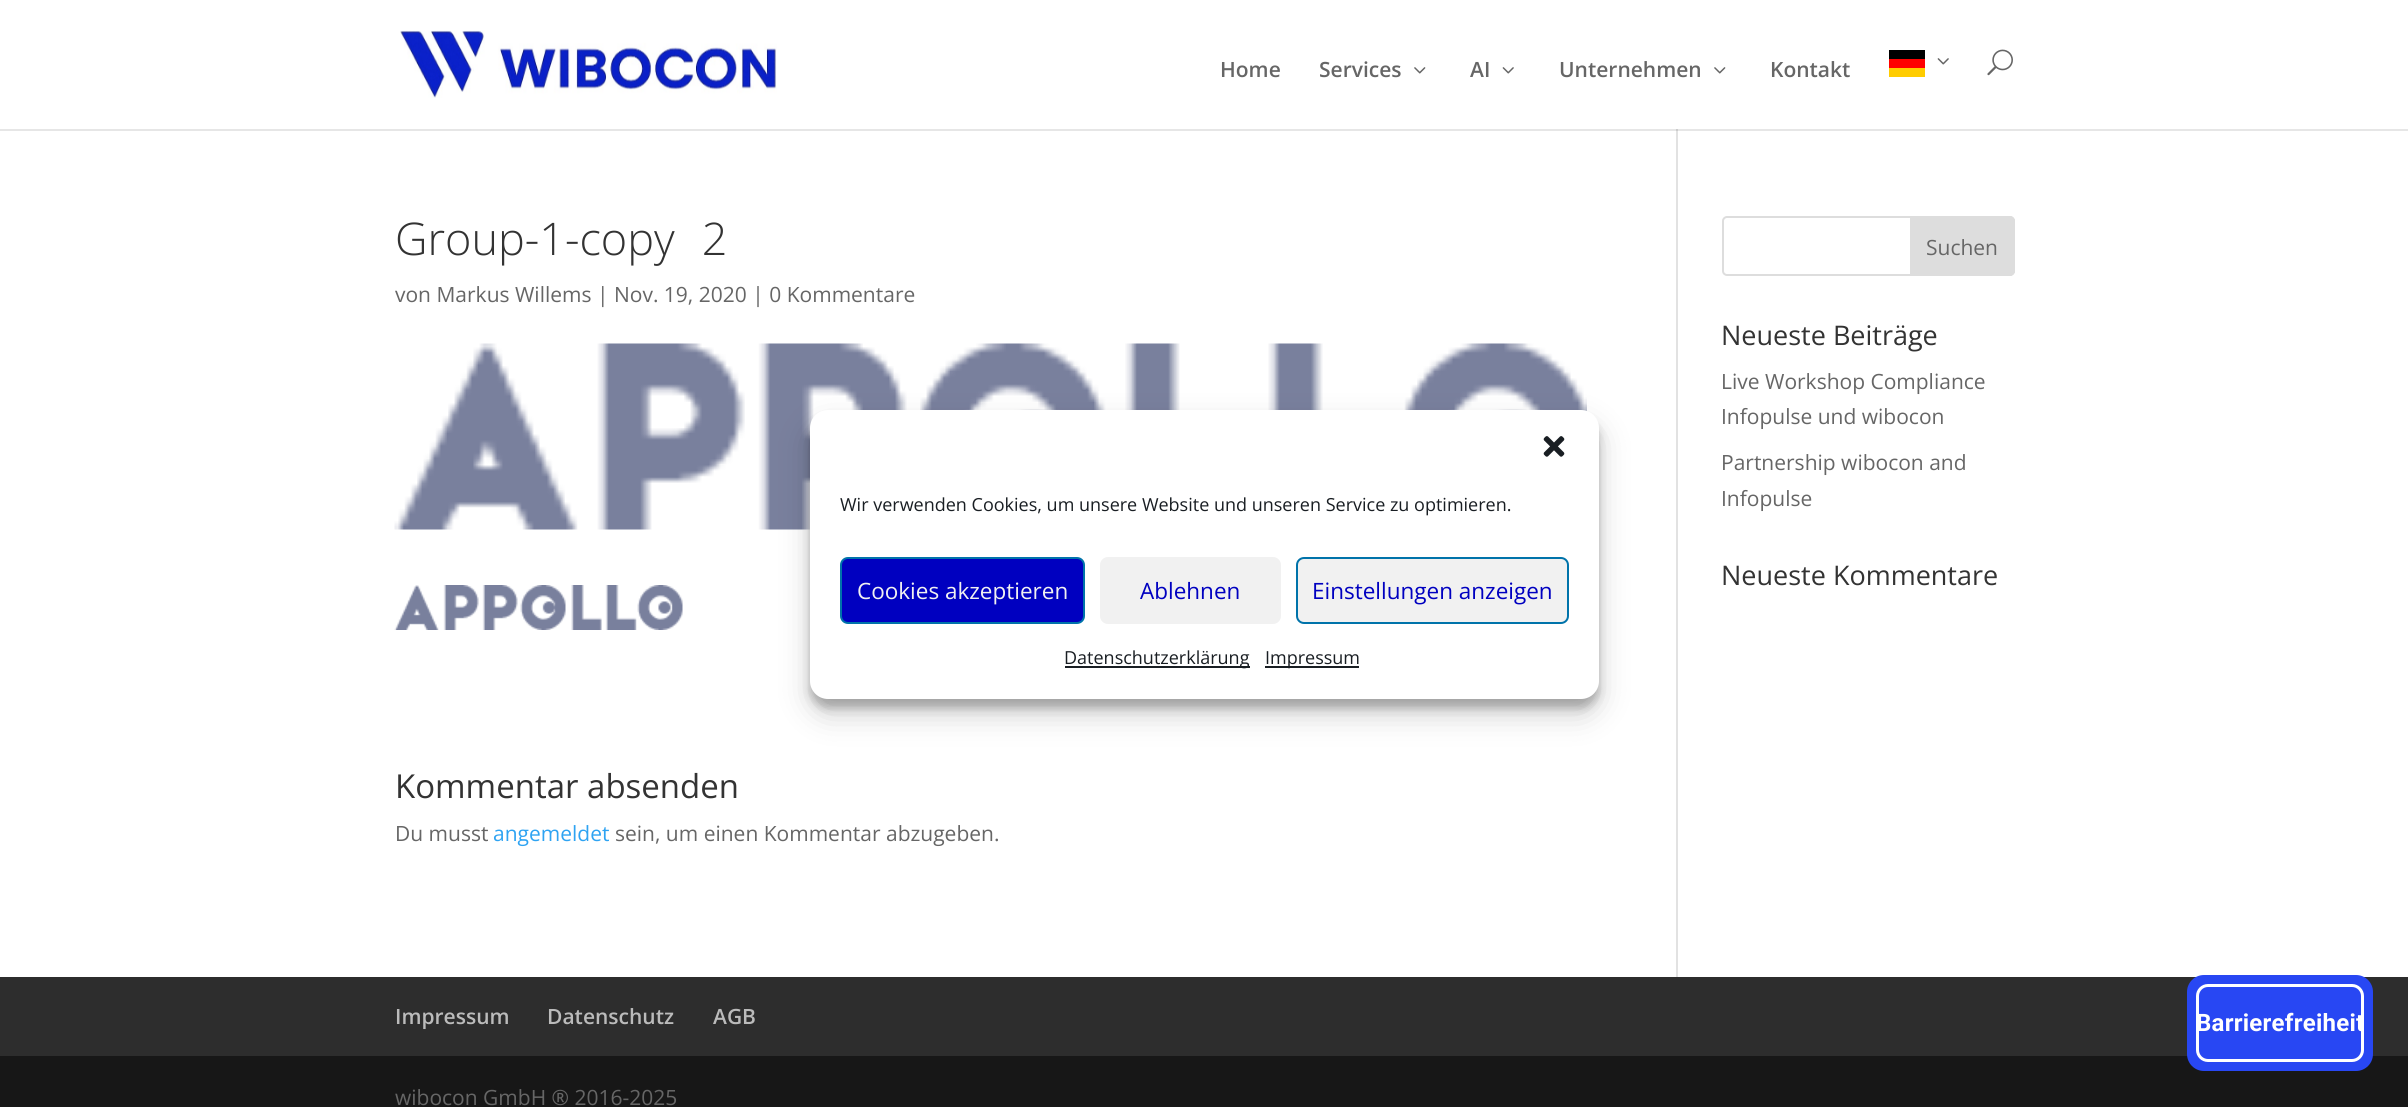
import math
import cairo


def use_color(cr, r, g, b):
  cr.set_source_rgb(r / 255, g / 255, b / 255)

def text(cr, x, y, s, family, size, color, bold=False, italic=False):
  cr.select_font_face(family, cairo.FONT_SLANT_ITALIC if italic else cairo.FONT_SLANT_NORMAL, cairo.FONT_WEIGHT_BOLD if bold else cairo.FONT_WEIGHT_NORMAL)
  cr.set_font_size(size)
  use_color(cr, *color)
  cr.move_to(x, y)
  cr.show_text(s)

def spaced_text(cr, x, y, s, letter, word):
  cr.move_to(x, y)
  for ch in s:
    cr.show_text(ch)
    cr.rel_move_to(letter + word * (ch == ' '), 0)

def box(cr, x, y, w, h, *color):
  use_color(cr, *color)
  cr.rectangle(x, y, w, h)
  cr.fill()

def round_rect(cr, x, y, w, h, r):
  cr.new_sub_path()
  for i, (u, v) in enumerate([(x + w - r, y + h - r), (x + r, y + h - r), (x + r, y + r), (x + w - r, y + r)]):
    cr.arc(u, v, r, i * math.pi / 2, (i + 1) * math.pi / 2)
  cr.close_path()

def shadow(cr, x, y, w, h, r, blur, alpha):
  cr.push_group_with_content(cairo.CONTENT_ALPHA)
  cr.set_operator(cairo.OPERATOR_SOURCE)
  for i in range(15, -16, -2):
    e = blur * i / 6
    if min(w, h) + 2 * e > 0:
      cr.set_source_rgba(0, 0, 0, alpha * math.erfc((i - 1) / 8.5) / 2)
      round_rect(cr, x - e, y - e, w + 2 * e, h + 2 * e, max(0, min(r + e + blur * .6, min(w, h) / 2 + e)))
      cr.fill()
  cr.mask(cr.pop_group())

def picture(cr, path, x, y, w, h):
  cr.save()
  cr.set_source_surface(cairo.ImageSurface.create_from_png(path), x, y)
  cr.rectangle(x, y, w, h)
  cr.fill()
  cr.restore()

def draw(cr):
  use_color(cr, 255, 255, 255)
  cr.paint()
  box(cr, 0, 129, 2408, 2, 230, 230, 230)
  picture(cr, "img_01.png", 400, 30, 377, 68)
  picture(cr, "img_02.png", 1414, 67, 12, 7)
  picture(cr, "img_03.png", 1502, 67, 12, 7)
  picture(cr, "img_02.png", 1714, 67, 12, 7)
  box(cr, 1889, 50, 36, 9, 0, 0, 0)
  box(cr, 1889, 59, 36, 9, 255, 0, 0)
  picture(cr, "img_03.png", 1937, 58, 12, 7)
  box(cr, 1889, 68, 36, 9, 255, 204, 0)
  picture(cr, "img_04.png", 1987, 49, 26, 27)
  box(cr, 1676, 129, 2, 848, 226, 226, 226)
  box(cr, 1676, 129, 2, 2, 203, 203, 203)
  picture(cr, "img_05.png", 394, 343, 1193, 187)
  picture(cr, "img_06.png", 394, 585, 289, 45)
  round_rect(cr, 1723, 217, 291, 58, 4)
  use_color(cr, 221, 221, 221)
  cr.stroke()
  cr.new_path()
  cr.move_to(1911, 217)
  cr.line_to(2010, 217)
  cr.curve_to(2012, 217, 2014, 219, 2014, 221)
  cr.line_to(2014, 271)
  cr.curve_to(2014, 273, 2012, 275, 2010, 275)
  cr.line_to(1911, 275)
  cr.close_path()
  cr.fill_preserve()
  cr.stroke()
  box(cr, 0, 977, 2408, 79, 45, 45, 45)
  box(cr, 0, 1056, 2408, 51, 23, 23, 23)
  use_color(cr, 0, 0, 0)
  shadow(cr, 810, 419, 789, 289, 18, 4.5, 0.23)
  shadow(cr, 810, 425, 789, 289, 18, 15, 0.19)
  use_color(cr, 255, 255, 255)
  round_rect(cr, 810, 410, 789, 289, 18)
  cr.fill()
  picture(cr, "img_07.png", 1543, 436, 22, 21)
  use_color(cr, 0, 0, 192)
  round_rect(cr, 841, 558, 243, 65, 7)
  cr.fill_preserve()
  use_color(cr, 0, 115, 170)
  cr.stroke()
  use_color(cr, 241, 241, 241)
  round_rect(cr, 1101, 558, 179, 65, 7)
  cr.fill_preserve()
  cr.stroke()
  round_rect(cr, 1297, 558, 271, 65, 7)
  cr.fill_preserve()
  use_color(cr, 0, 115, 170)
  cr.stroke()
  box(cr, 1065, 666, 185, 2, 25, 30, 35)
  box(cr, 1265, 666, 94, 2, 25, 30, 35)
  use_color(cr, 40, 71, 243)
  round_rect(cr, 2187, 975, 186, 96, 17)
  cr.fill()
  round_rect(cr, 2197.5, 985.5, 165, 75, 10.5)
  use_color(cr, 255, 255, 255)
  cr.set_line_width(3)
  cr.stroke()
  text(cr, 1220, 77, "Home", "Open Sans SemiBold", 21, (102, 102, 102))
  text(cr, 1319, 77, "Services", "Open Sans SemiBold", 21, (102, 102, 102))
  text(cr, 1470, 77, "AI", "Open Sans SemiBold", 21, (102, 102, 102))
  text(cr, 1559, 77, "Unternehmen", "Open Sans SemiBold", 21, (102, 102, 102))
  text(cr, 1770, 77, "Kontakt", "Open Sans SemiBold", 21, (102, 102, 102))
  text(cr, 395, 255, "Group-1-copy‑2", "Open Sans Light", 45, (51, 51, 51))
  text(cr, 395, 302, "von Markus Willems | Nov. 19, 2020 | 0 Kommentare", "Open Sans", 21, (102, 102, 102))
  text(cr, 395, 798, "Kommentar absenden", "Open Sans", 33, (51, 51, 51))
  text(cr, 395, 841, "Du musst", "Open Sans", 21, (102, 102, 102))
  text(cr, 493, 841, "angemeldet", "Open Sans", 21, (46, 163, 242))
  text(cr, 615, 841, "sein, um einen Kommentar abzugeben.", "Open Sans", 21, (102, 102, 102))
  text(cr, 1926, 255, "Suchen", "Open Sans", 21, (102, 102, 102))
  text(cr, 1721, 345, "Neueste Beiträge", "Open Sans", 27, (51, 51, 51))
  text(cr, 1721, 389, "Live Workshop Compliance", "Open Sans", 21, (102, 102, 102))
  text(cr, 1721, 424, "Infopulse und wibocon", "Open Sans", 21, (102, 102, 102))
  text(cr, 1721, 470, "Partnership wibocon and", "Open Sans", 21, (102, 102, 102))
  text(cr, 1721, 506, "Infopulse", "Open Sans", 21, (102, 102, 102))
  text(cr, 1721, 585, "Neueste Kommentare", "Open Sans", 27, (51, 51, 51))
  text(cr, 395, 1024, "Impressum", "Open Sans SemiBold", 21, (187, 187, 187))
  text(cr, 547, 1024, "Datenschutz", "Open Sans SemiBold", 21, (187, 187, 187))
  text(cr, 713, 1024, "AGB", "Open Sans SemiBold", 21, (187, 187, 187))
  text(cr, 395, 1105, "wibocon GmbH ® 2016-2025", "Open Sans", 21, (102, 102, 102))
  text(cr, 840, 511, "Wir verwenden Cookies, um unsere Website und unseren Service zu optimieren.", "Open Sans", 18, (25, 30, 35))
  text(cr, 857, 599, "Cookies akzeptieren", "Open Sans", 22.5, (241, 241, 241))
  text(cr, 1140, 599, "Ablehnen", "Open Sans", 22.5, (0, 0, 192))
  text(cr, 1312, 599, "Einstellungen anzeigen", "Open Sans", 22.5, (0, 0, 192))
  text(cr, 1064, 664, "Datenschutzerklärung", "Open Sans", 18, (25, 30, 35))
  text(cr, 1265, 664, "Impressum", "Open Sans", 18, (25, 30, 35))
  cr.select_font_face("Roboto", cairo.FONT_SLANT_NORMAL, cairo.FONT_WEIGHT_BOLD)
  cr.set_font_size(24)
  use_color(cr, 255, 255, 255)
  spaced_text(cr, 2196, 1031, "Barrierefreiheit", 0.25, 0)


surface = cairo.ImageSurface(cairo.FORMAT_RGB24, 2408, 1107)
cr = cairo.Context(surface)
options = cairo.FontOptions()
options.set_hint_metrics(cairo.HINT_METRICS_OFF)
options.set_hint_style(cairo.HINT_STYLE_NONE)
cr.set_font_options(options)
cr.set_miter_limit(4)
draw(cr)
surface.write_to_png("out.png")
